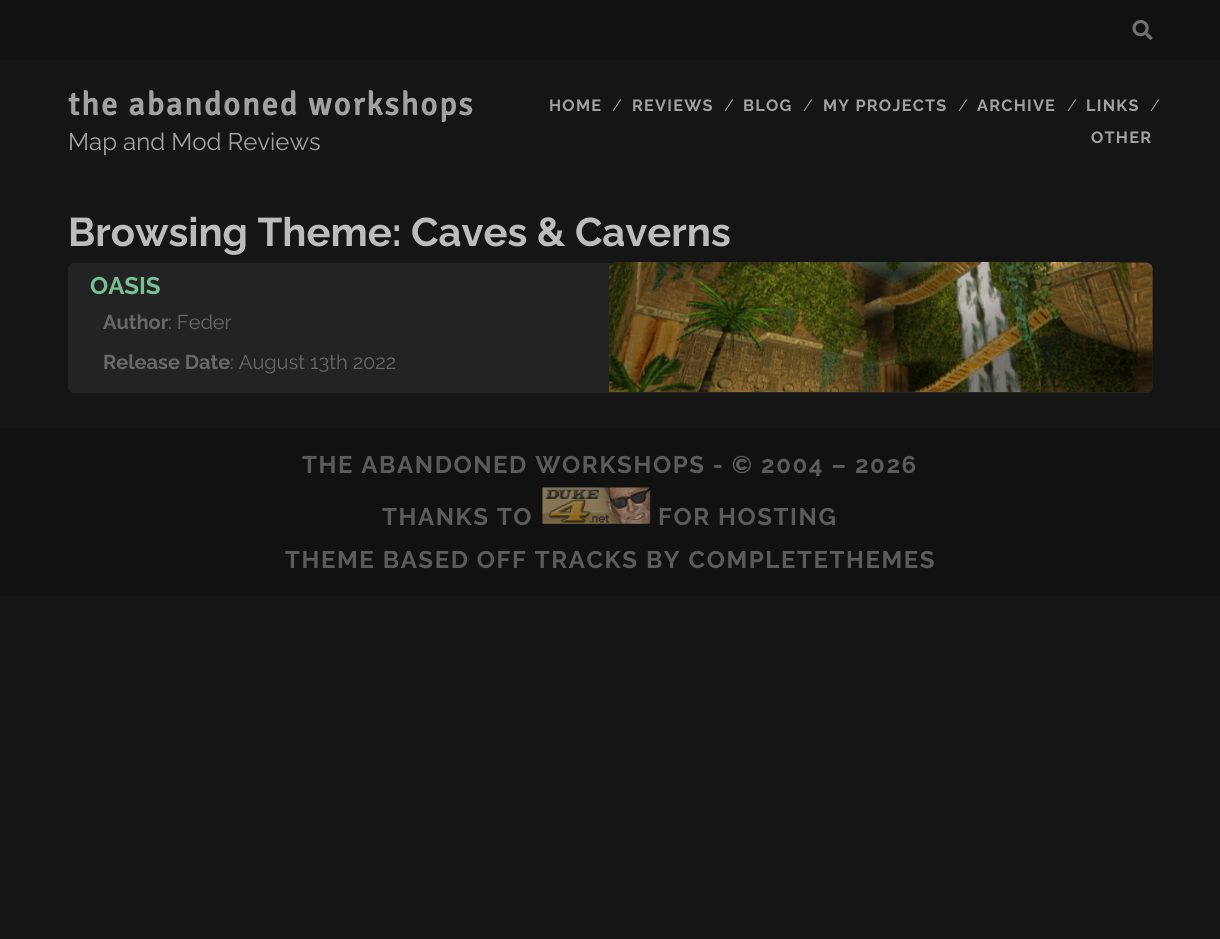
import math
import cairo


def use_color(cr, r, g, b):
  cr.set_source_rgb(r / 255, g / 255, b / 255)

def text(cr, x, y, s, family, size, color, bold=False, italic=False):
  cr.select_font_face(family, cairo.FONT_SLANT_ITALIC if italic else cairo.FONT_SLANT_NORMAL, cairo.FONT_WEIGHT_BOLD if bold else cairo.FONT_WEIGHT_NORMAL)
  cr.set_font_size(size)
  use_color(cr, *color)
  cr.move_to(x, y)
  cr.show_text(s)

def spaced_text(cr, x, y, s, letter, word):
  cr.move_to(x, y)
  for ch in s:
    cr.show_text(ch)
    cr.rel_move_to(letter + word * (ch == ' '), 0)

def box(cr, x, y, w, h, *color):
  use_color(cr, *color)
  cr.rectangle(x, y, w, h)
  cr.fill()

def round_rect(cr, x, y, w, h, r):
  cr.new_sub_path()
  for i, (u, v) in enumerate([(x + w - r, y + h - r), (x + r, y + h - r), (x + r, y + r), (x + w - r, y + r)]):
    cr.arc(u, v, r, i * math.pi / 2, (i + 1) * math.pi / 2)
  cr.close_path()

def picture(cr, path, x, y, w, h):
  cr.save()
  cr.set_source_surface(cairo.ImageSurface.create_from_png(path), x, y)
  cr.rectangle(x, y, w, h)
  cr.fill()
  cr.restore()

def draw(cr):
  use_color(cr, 21, 21, 21)
  cr.paint()
  box(cr, 0, 0, 1220, 60, 17, 17, 17)
  picture(cr, "img_01.png", 1132, 20, 21, 20)
  use_color(cr, 35, 35, 35)
  round_rect(cr, 68, 263, 1085, 130, 6)
  cr.fill()
  picture(cr, "img_02.png", 609, 262, 544, 130)
  box(cr, 0, 428, 1220, 168, 17, 17, 17)
  picture(cr, "img_03.png", 541, 486, 110, 39)
  cr.select_font_face("Signika", cairo.FONT_SLANT_NORMAL, cairo.FONT_WEIGHT_BOLD)
  cr.set_font_size(32.5)
  use_color(cr, 161, 161, 161)
  spaced_text(cr, 68, 115, "the abandoned workshops", 1.95, 0)
  text(cr, 68, 150, "Map and Mod Reviews", "Raleway Thin", 24, (161, 161, 161))
  cr.select_font_face("Raleway", cairo.FONT_SLANT_NORMAL, cairo.FONT_WEIGHT_BOLD)
  cr.set_font_size(16.25)
  spaced_text(cr, 549, 111, "HOME", 1.25, 0)
  text(cr, 612, 111, "/", "Raleway Thin", 16.25, (161, 161, 161))
  cr.select_font_face("Raleway", cairo.FONT_SLANT_NORMAL, cairo.FONT_WEIGHT_BOLD)
  spaced_text(cr, 632, 111, "REVIEWS", 1.25, 0)
  text(cr, 724, 111, "/", "Raleway Thin", 16.25, (161, 161, 161))
  cr.select_font_face("Raleway", cairo.FONT_SLANT_NORMAL, cairo.FONT_WEIGHT_BOLD)
  spaced_text(cr, 743, 111, "BLOG", 1.25, 0)
  text(cr, 803, 111, "/", "Raleway Thin", 16.25, (161, 161, 161))
  cr.select_font_face("Raleway", cairo.FONT_SLANT_NORMAL, cairo.FONT_WEIGHT_BOLD)
  spaced_text(cr, 823, 111, "MY PROJECTS", 1.25, 0)
  text(cr, 958, 111, "/", "Raleway Thin", 16.25, (161, 161, 161))
  cr.select_font_face("Raleway", cairo.FONT_SLANT_NORMAL, cairo.FONT_WEIGHT_BOLD)
  spaced_text(cr, 977, 111, "ARCHIVE", 1.25, 0)
  text(cr, 1067, 111, "/", "Raleway Thin", 16.25, (161, 161, 161))
  cr.select_font_face("Raleway", cairo.FONT_SLANT_NORMAL, cairo.FONT_WEIGHT_BOLD)
  spaced_text(cr, 1086, 111, "LINKS", 1.25, 0)
  text(cr, 1150, 111, "/", "Raleway Thin", 16.25, (161, 161, 161))
  cr.select_font_face("Raleway", cairo.FONT_SLANT_NORMAL, cairo.FONT_WEIGHT_BOLD)
  spaced_text(cr, 1091, 143, "OTHER", 1.25, 0)
  text(cr, 68, 246, "Browsing Theme: Caves & Caverns", "Raleway", 40, (188, 188, 188), bold=True)
  text(cr, 90, 294, "OASIS", "Raleway", 24, (119, 192, 146), bold=True)
  text(cr, 103, 329, "Author", "Raleway", 20, (104, 104, 104), bold=True)
  text(cr, 168, 329, ": Feder", "Raleway Thin", 20, (104, 104, 104))
  text(cr, 103, 369, "Release Date", "Raleway", 20, (104, 104, 104), bold=True)
  text(cr, 230, 369, ": August 13th 2022", "Raleway Thin", 20, (104, 104, 104))
  cr.select_font_face("Raleway", cairo.FONT_SLANT_NORMAL, cairo.FONT_WEIGHT_BOLD)
  cr.set_font_size(24)
  use_color(cr, 91, 91, 91)
  spaced_text(cr, 302, 473, "THE ABANDONED WORKSHOPS - © 2004 – 2026", 1.6, 0)
  spaced_text(cr, 382, 525, "THANKS TO", 1.6, 0)
  spaced_text(cr, 658, 525, "FOR HOSTING", 1.6, 0)
  spaced_text(cr, 285, 568, "THEME BASED OFF TRACKS BY COMPLETETHEMES", 1.6, 0)


surface = cairo.ImageSurface(cairo.FORMAT_RGB24, 1220, 939)
cr = cairo.Context(surface)
options = cairo.FontOptions()
options.set_hint_metrics(cairo.HINT_METRICS_OFF)
options.set_hint_style(cairo.HINT_STYLE_NONE)
cr.set_font_options(options)
cr.set_miter_limit(4)
draw(cr)
surface.write_to_png("out.png")
